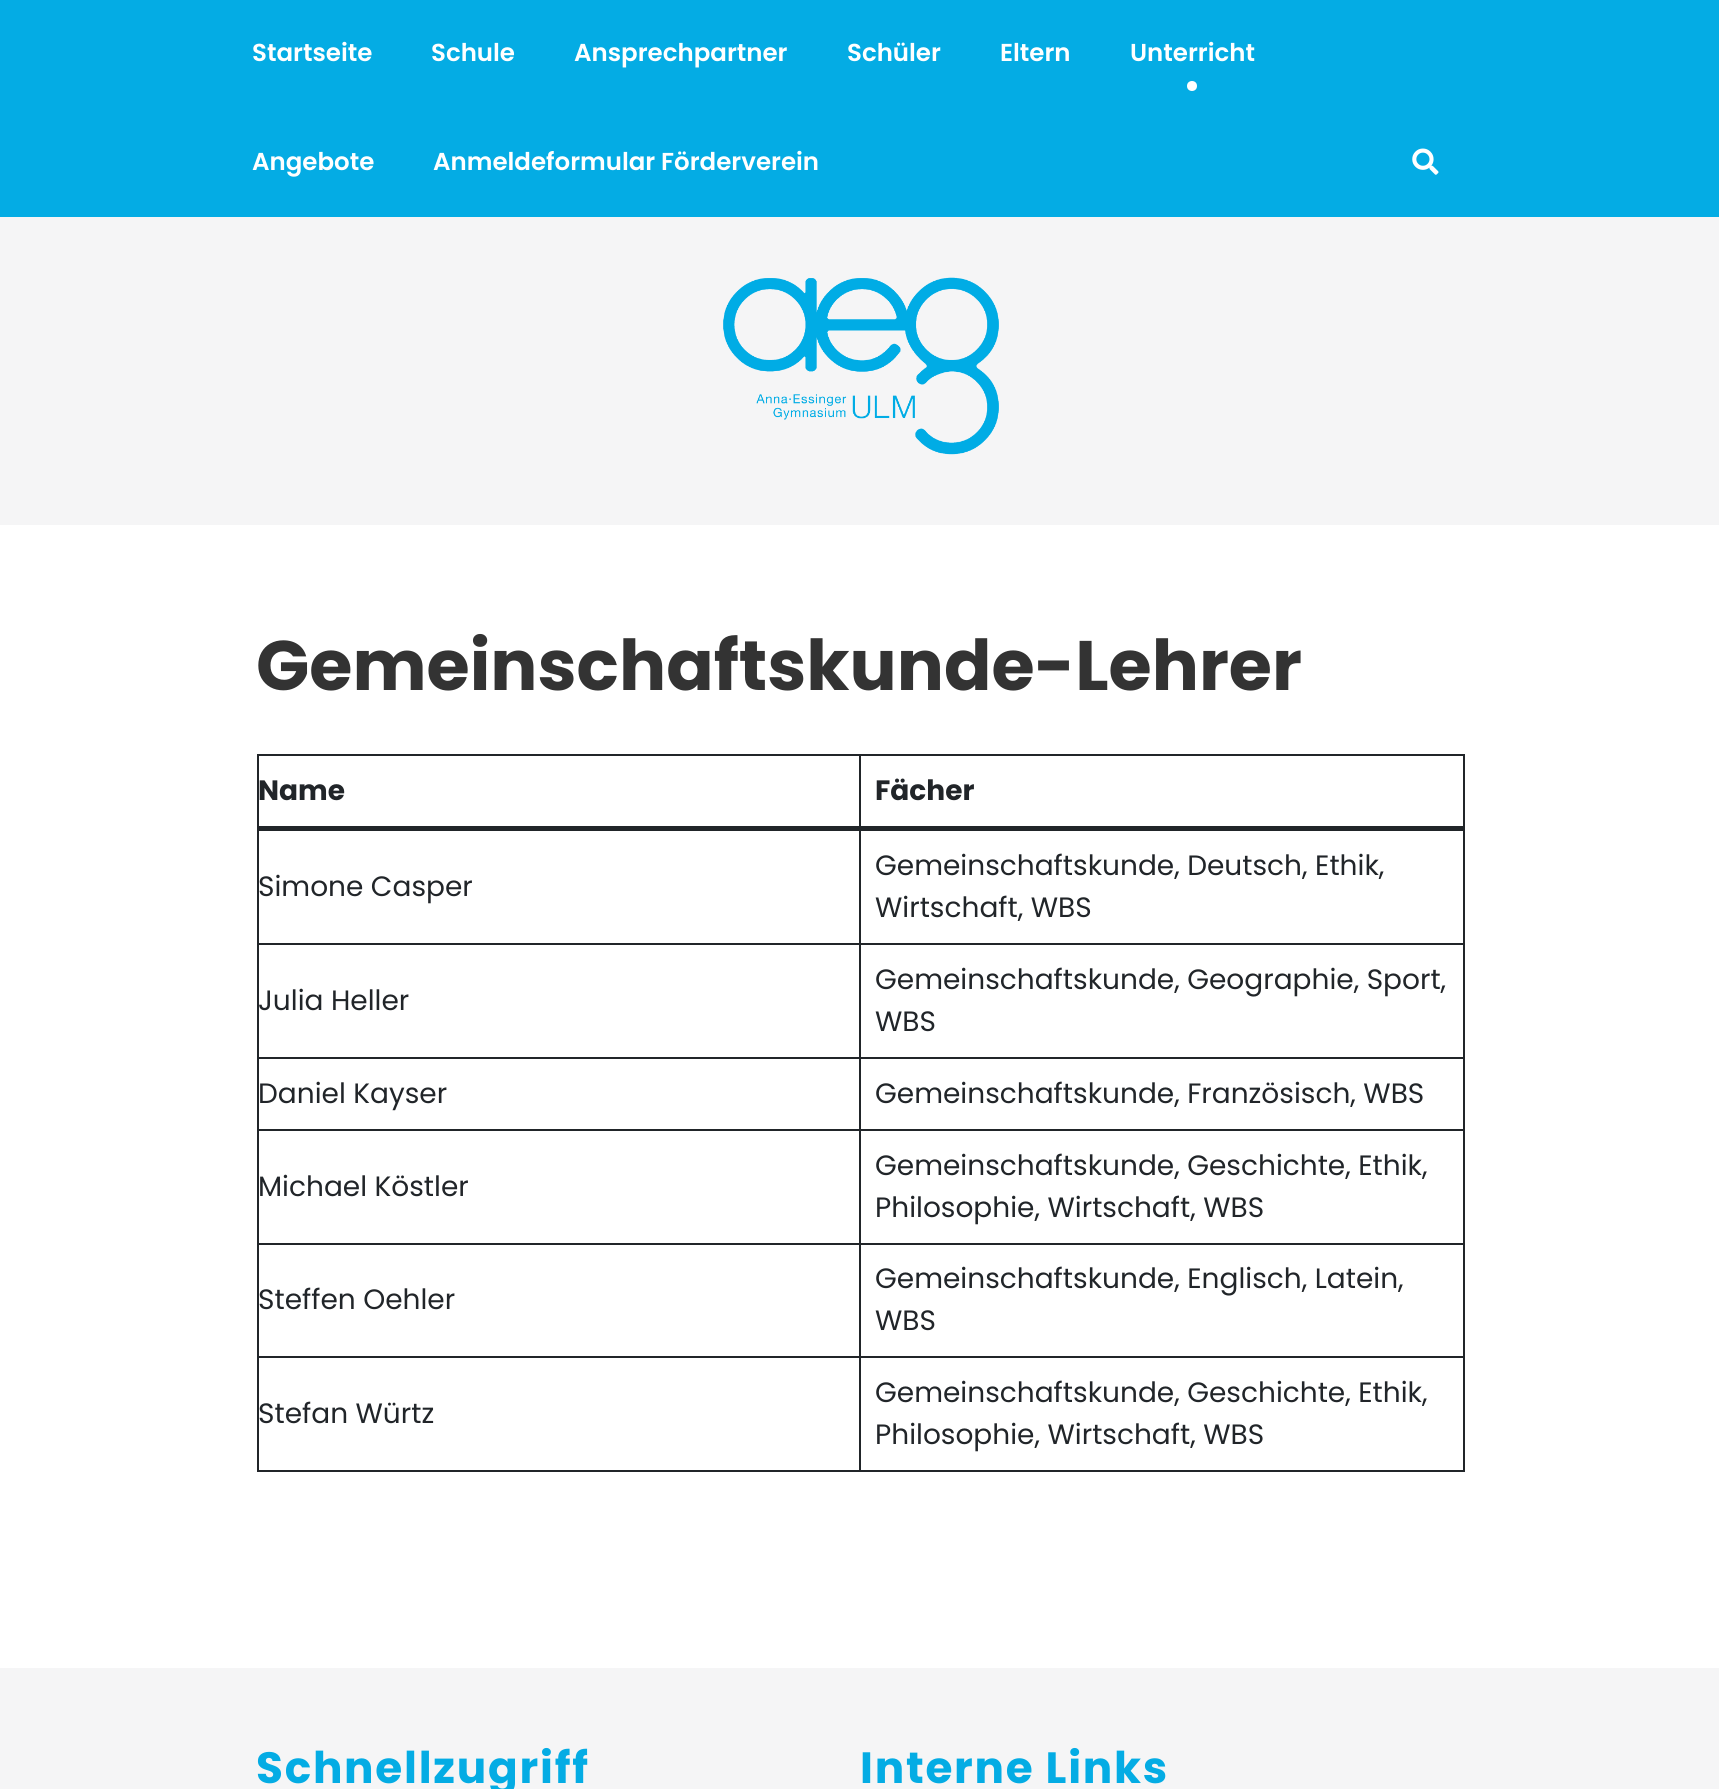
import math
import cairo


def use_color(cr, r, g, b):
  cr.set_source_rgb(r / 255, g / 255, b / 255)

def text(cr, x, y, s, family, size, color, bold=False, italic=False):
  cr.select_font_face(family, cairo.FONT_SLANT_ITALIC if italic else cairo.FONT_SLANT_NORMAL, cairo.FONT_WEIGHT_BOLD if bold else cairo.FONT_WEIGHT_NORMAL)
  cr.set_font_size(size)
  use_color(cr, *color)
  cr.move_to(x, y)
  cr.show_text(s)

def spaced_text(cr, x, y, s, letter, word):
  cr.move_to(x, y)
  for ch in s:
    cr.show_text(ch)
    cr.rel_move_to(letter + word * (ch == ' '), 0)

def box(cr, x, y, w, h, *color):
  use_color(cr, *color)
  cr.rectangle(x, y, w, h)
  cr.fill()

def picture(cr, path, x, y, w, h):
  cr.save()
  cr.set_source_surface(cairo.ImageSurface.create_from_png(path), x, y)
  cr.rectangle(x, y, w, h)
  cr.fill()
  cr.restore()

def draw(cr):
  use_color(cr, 255, 255, 255)
  cr.paint()
  box(cr, 0, 217, 1719, 308, 245, 245, 246)
  box(cr, 0, 0, 1719, 217, 4, 172, 228)
  use_color(cr, 255, 255, 255)
  cr.arc(1192, 86, 5, 0, 2 * math.pi)
  cr.fill()
  picture(cr, "img_01.png", 1412, 148, 27, 27)
  picture(cr, "img_02.png", 723, 277, 276, 178)
  box(cr, 859, 754, 606, 2, 33, 37, 41)
  box(cr, 859, 943, 606, 2, 33, 37, 41)
  box(cr, 859, 1057, 606, 2, 33, 37, 41)
  box(cr, 859, 1129, 606, 2, 33, 37, 41)
  box(cr, 859, 1243, 606, 2, 33, 37, 41)
  box(cr, 859, 1356, 606, 2, 33, 37, 41)
  box(cr, 1463, 1356, 2, 116, 33, 37, 41)
  box(cr, 859, 1470, 606, 2, 33, 37, 41)
  box(cr, 859, 1356, 2, 116, 33, 37, 41)
  box(cr, 257, 1356, 604, 2, 33, 37, 41)
  box(cr, 859, 1243, 2, 115, 33, 37, 41)
  box(cr, 257, 1243, 604, 2, 33, 37, 41)
  box(cr, 859, 1129, 2, 115, 33, 37, 41)
  box(cr, 257, 1129, 604, 2, 33, 37, 41)
  box(cr, 859, 1057, 2, 74, 33, 37, 41)
  box(cr, 257, 1057, 604, 2, 33, 37, 41)
  box(cr, 859, 943, 2, 116, 33, 37, 41)
  box(cr, 257, 943, 604, 2, 33, 37, 41)
  box(cr, 859, 828, 2, 117, 33, 37, 41)
  box(cr, 859, 754, 2, 76, 33, 37, 41)
  box(cr, 257, 754, 604, 2, 33, 37, 41)
  box(cr, 257, 1470, 604, 2, 33, 37, 41)
  box(cr, 257, 1356, 2, 116, 33, 37, 41)
  box(cr, 257, 1243, 2, 115, 33, 37, 41)
  box(cr, 257, 1129, 2, 115, 33, 37, 41)
  box(cr, 257, 1057, 2, 74, 33, 37, 41)
  box(cr, 257, 828, 2, 231, 33, 37, 41)
  box(cr, 257, 754, 2, 76, 33, 37, 41)
  box(cr, 1463, 1243, 2, 115, 33, 37, 41)
  box(cr, 1463, 1129, 2, 115, 33, 37, 41)
  box(cr, 1463, 1057, 2, 74, 33, 37, 41)
  box(cr, 1463, 828, 2, 231, 33, 37, 41)
  box(cr, 1463, 754, 2, 76, 33, 37, 41)
  box(cr, 257, 826, 1208, 5, 33, 37, 41)
  box(cr, 0, 1668, 1719, 121, 245, 245, 246)
  text(cr, 252, 61, "Startseite", "Poppins SemiBold", 24.5, (255, 255, 255))
  text(cr, 431, 61, "Schule", "Poppins SemiBold", 24.5, (255, 255, 255))
  text(cr, 574, 61, "Ansprechpartner", "Poppins SemiBold", 24.5, (255, 255, 255))
  text(cr, 847, 61, "Schüler", "Poppins SemiBold", 24.5, (255, 255, 255))
  text(cr, 1000, 61, "Eltern", "Poppins SemiBold", 24.5, (255, 255, 255))
  text(cr, 1130, 61, "Unterricht", "Poppins SemiBold", 24.5, (255, 255, 255))
  text(cr, 252, 170, "Angebote", "Poppins SemiBold", 24.5, (255, 255, 255))
  text(cr, 433, 170, "Anmeldeformular Förderverein", "Poppins SemiBold", 24.5, (255, 255, 255))
  text(cr, 256, 690, "Gemeinschaftskunde-Lehrer", "Poppins", 70, (51, 51, 51), bold=True)
  text(cr, 258, 800, "Name", "Poppins", 28, (33, 37, 41), bold=True)
  text(cr, 875, 800, "Fächer", "Poppins", 28, (33, 37, 41), bold=True)
  text(cr, 258, 896, "Simone Casper", "Poppins", 28, (33, 37, 41))
  text(cr, 875, 875, "Gemeinschaftskunde, Deutsch, Ethik,", "Poppins", 28, (33, 37, 41))
  text(cr, 875, 917, "Wirtschaft, WBS", "Poppins", 28, (33, 37, 41))
  text(cr, 258, 1010, "Julia Heller", "Poppins", 28, (33, 37, 41))
  text(cr, 875, 989, "Gemeinschaftskunde, Geographie, Sport,", "Poppins", 28, (33, 37, 41))
  text(cr, 875, 1031, "WBS", "Poppins", 28, (33, 37, 41))
  text(cr, 258, 1103, "Daniel Kayser", "Poppins", 28, (33, 37, 41))
  text(cr, 875, 1103, "Gemeinschaftskunde, Französisch, WBS", "Poppins", 28, (33, 37, 41))
  text(cr, 258, 1196, "Michael Köstler", "Poppins", 28, (33, 37, 41))
  text(cr, 875, 1175, "Gemeinschaftskunde, Geschichte, Ethik,", "Poppins", 28, (33, 37, 41))
  text(cr, 875, 1217, "Philosophie, Wirtschaft, WBS", "Poppins", 28, (33, 37, 41))
  text(cr, 258, 1309, "Steffen Oehler", "Poppins", 28, (33, 37, 41))
  text(cr, 875, 1288, "Gemeinschaftskunde, Englisch, Latein,", "Poppins", 28, (33, 37, 41))
  text(cr, 875, 1330, "WBS", "Poppins", 28, (33, 37, 41))
  text(cr, 258, 1423, "Stefan Würtz", "Poppins", 28, (33, 37, 41))
  text(cr, 875, 1402, "Gemeinschaftskunde, Geschichte, Ethik,", "Poppins", 28, (33, 37, 41))
  text(cr, 875, 1444, "Philosophie, Wirtschaft, WBS", "Poppins", 28, (33, 37, 41))
  cr.select_font_face("Poppins", cairo.FONT_SLANT_NORMAL, cairo.FONT_WEIGHT_BOLD)
  cr.set_font_size(43.75)
  use_color(cr, 4, 172, 228)
  spaced_text(cr, 256, 1783, "Schnellzugriff", 1.75, 0)
  spaced_text(cr, 860, 1783, "Interne Links", 1.75, 0)


surface = cairo.ImageSurface(cairo.FORMAT_RGB24, 1719, 1789)
cr = cairo.Context(surface)
options = cairo.FontOptions()
options.set_hint_metrics(cairo.HINT_METRICS_OFF)
options.set_hint_style(cairo.HINT_STYLE_NONE)
cr.set_font_options(options)
cr.set_miter_limit(4)
draw(cr)
surface.write_to_png("out.png")
